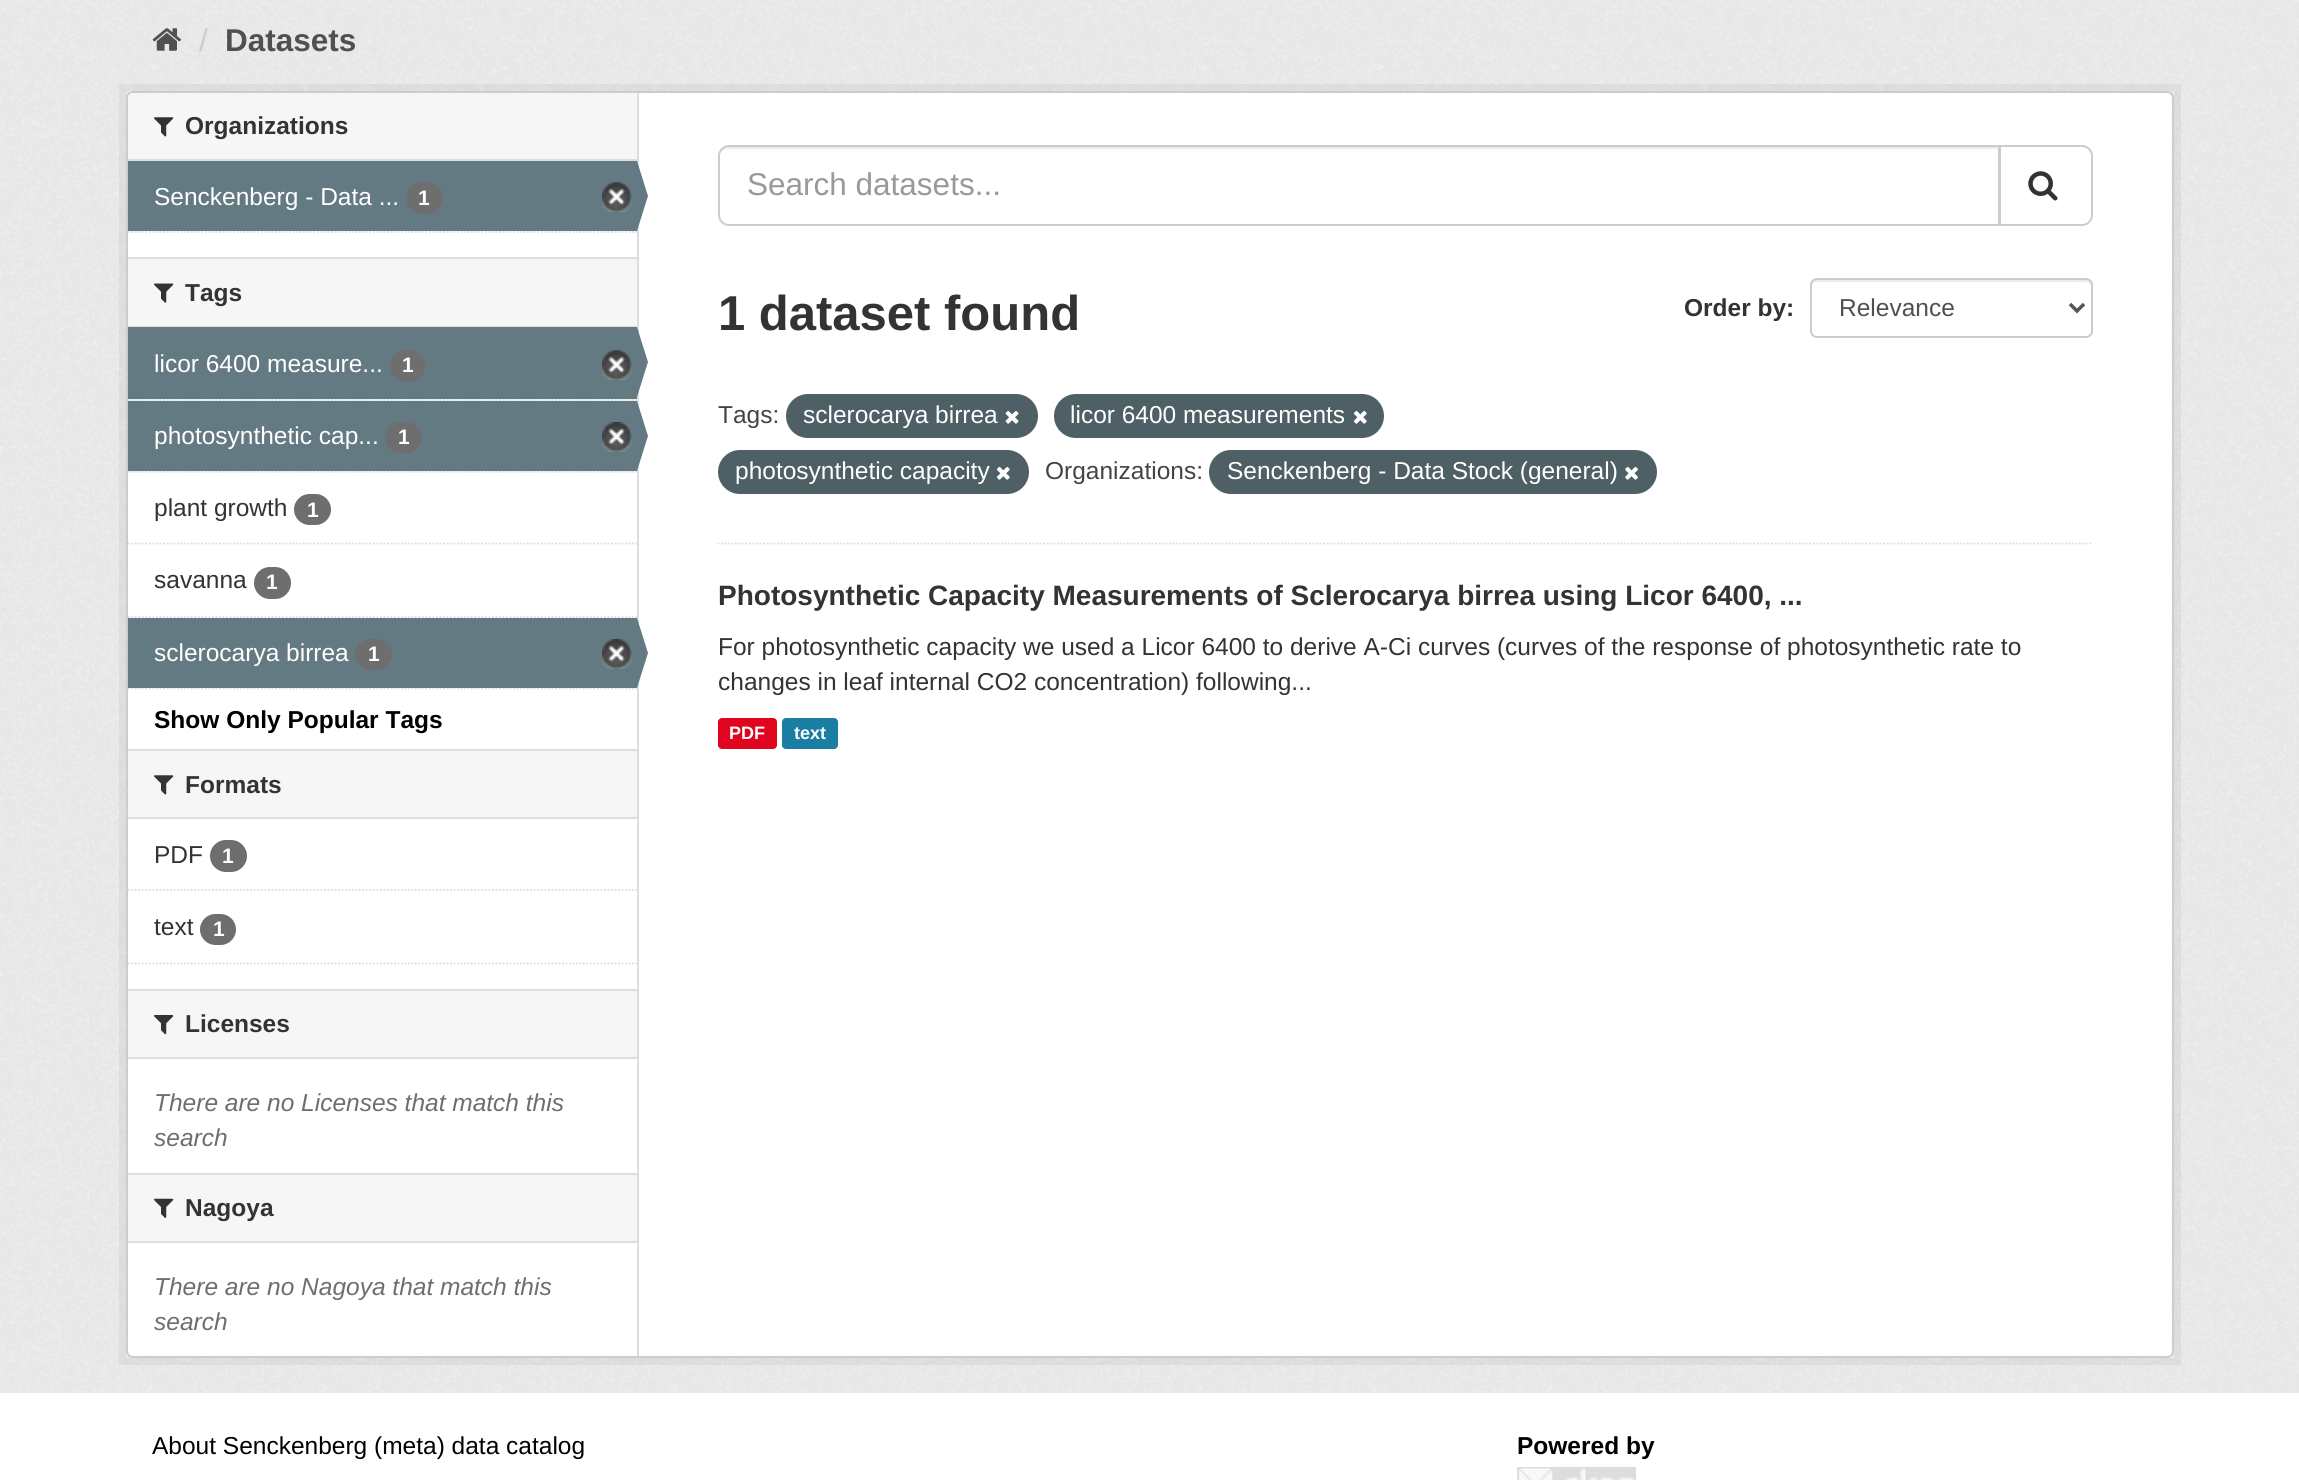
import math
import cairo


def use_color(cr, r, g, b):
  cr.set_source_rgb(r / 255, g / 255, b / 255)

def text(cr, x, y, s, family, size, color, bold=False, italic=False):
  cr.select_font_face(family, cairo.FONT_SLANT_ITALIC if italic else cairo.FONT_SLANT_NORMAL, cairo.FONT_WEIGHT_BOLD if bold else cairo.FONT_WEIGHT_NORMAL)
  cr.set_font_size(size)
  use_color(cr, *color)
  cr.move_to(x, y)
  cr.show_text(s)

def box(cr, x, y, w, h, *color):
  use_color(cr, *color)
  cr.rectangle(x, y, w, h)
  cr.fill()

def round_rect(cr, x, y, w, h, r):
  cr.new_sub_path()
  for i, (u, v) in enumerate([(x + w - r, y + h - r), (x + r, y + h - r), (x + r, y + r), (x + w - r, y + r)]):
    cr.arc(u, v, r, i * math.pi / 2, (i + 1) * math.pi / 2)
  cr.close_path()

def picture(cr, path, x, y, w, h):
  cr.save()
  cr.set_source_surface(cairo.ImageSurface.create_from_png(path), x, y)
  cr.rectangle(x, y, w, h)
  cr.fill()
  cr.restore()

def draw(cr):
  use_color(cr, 255, 255, 255)
  cr.paint()
  box(cr, 0, 0, 2299, 1393, 238, 238, 238)
  picture(cr, "img_01.png", 0, 0, 2299, 1393)
  picture(cr, "img_02.png", 152, 28, 29, 23)
  cr.rectangle(122.5, 87.5, 2055, 1274)
  cr.set_source_rgba(0, 0, 0, 0.05)
  cr.set_line_width(7)
  cr.stroke()
  use_color(cr, 255, 255, 255)
  round_rect(cr, 127, 92, 2046, 1265, 6)
  cr.fill_preserve()
  use_color(cr, 204, 204, 204)
  cr.set_line_width(2)
  cr.stroke()
  use_color(cr, 246, 246, 246)
  cr.new_path()
  cr.move_to(133, 93)
  cr.line_to(637, 93)
  cr.line_to(637, 161)
  cr.line_to(128, 161)
  cr.line_to(128, 98)
  cr.curve_to(128, 95, 130, 93, 133, 93)
  cr.close_path()
  cr.fill()
  box(cr, 128, 159, 509, 2, 221, 221, 221)
  picture(cr, "img_03.png", 154, 117, 20, 20)
  box(cr, 128, 161, 509, 70, 100, 122, 130)
  use_color(cr, 110, 110, 110)
  round_rect(cr, 406, 182, 37, 32, 16)
  cr.fill()
  picture(cr, "img_04.png", 602, 182, 30, 30)
  box(cr, 637, 93, 2, 1263, 221, 221, 221)
  use_color(cr, 100, 122, 130)
  cr.new_path()
  cr.move_to(637, 231)
  cr.line_to(637, 161)
  cr.line_to(648, 196)
  cr.close_path()
  cr.fill()
  cr.new_path()
  cr.move_to(128, 232)
  cr.line_to(637, 232)
  use_color(cr, 221, 221, 221)
  cr.set_line_width(1.8)
  cr.set_dash([1.75, 1.75])
  cr.stroke()
  box(cr, 128, 259, 509, 67, 246, 246, 246)
  box(cr, 128, 257, 509, 2, 221, 221, 221)
  box(cr, 128, 326, 509, 1, 221, 221, 221)
  picture(cr, "img_05.png", 154, 283, 20, 20)
  box(cr, 128, 399, 509, 2, 246, 246, 246)
  cr.new_path()
  cr.move_to(128, 400)
  cr.line_to(637, 400)
  use_color(cr, 221, 221, 221)
  cr.stroke()
  box(cr, 128, 327, 509, 72, 100, 122, 130)
  use_color(cr, 110, 110, 110)
  round_rect(cr, 390, 350, 35, 32, 16)
  cr.fill()
  picture(cr, "img_04.png", 602, 350, 30, 30)
  use_color(cr, 100, 122, 130)
  cr.new_path()
  cr.move_to(637, 397)
  cr.line_to(637, 327)
  cr.line_to(648, 362)
  cr.close_path()
  cr.fill()
  box(cr, 128, 471, 509, 2, 246, 246, 246)
  cr.new_path()
  cr.move_to(128, 471.5)
  cr.line_to(637, 471.5)
  use_color(cr, 221, 221, 221)
  cr.stroke()
  box(cr, 128, 401, 509, 70, 100, 122, 130)
  use_color(cr, 110, 110, 110)
  round_rect(cr, 385, 422, 37, 31, 15.5)
  cr.fill()
  picture(cr, "img_06.png", 602, 422, 30, 30)
  use_color(cr, 100, 122, 130)
  cr.new_path()
  cr.move_to(637, 471)
  cr.line_to(637, 401)
  cr.line_to(648, 436)
  cr.close_path()
  cr.fill()
  cr.new_path()
  cr.move_to(128, 543.5)
  cr.line_to(637, 543.5)
  use_color(cr, 221, 221, 221)
  cr.stroke()
  use_color(cr, 110, 110, 110)
  round_rect(cr, 294, 494, 37, 31, 15.5)
  cr.fill()
  cr.new_path()
  cr.move_to(128, 617)
  cr.line_to(637, 617)
  use_color(cr, 221, 221, 221)
  cr.stroke()
  use_color(cr, 110, 110, 110)
  round_rect(cr, 254, 567, 37, 32, 16)
  cr.fill()
  cr.new_path()
  cr.move_to(128, 688.5)
  cr.line_to(637, 688.5)
  use_color(cr, 221, 221, 221)
  cr.stroke()
  box(cr, 128, 618, 509, 70, 100, 122, 130)
  use_color(cr, 110, 110, 110)
  round_rect(cr, 355, 639, 37, 31, 15.5)
  cr.fill()
  picture(cr, "img_06.png", 602, 639, 30, 30)
  use_color(cr, 100, 122, 130)
  cr.new_path()
  cr.move_to(637, 688)
  cr.line_to(637, 618)
  cr.line_to(648, 653)
  cr.close_path()
  cr.fill()
  box(cr, 128, 751, 509, 66, 246, 246, 246)
  box(cr, 128, 749, 509, 2, 221, 221, 221)
  box(cr, 128, 817, 509, 2, 221, 221, 221)
  picture(cr, "img_03.png", 154, 775, 20, 20)
  cr.new_path()
  cr.move_to(128, 890)
  cr.line_to(637, 890)
  cr.stroke()
  use_color(cr, 110, 110, 110)
  round_rect(cr, 210, 840, 37, 32, 16)
  cr.fill()
  round_rect(cr, 200, 914, 36, 31, 15.5)
  cr.fill()
  cr.new_path()
  cr.move_to(128, 963.5)
  cr.line_to(637, 963.5)
  use_color(cr, 221, 221, 221)
  cr.stroke()
  box(cr, 128, 991, 509, 66, 246, 246, 246)
  box(cr, 128, 989, 509, 2, 221, 221, 221)
  box(cr, 128, 1057, 509, 2, 221, 221, 221)
  picture(cr, "img_07.png", 154, 1015, 20, 20)
  box(cr, 128, 1175, 509, 66, 246, 246, 246)
  box(cr, 128, 1173, 509, 2, 221, 221, 221)
  box(cr, 128, 1241, 509, 2, 221, 221, 221)
  picture(cr, "img_08.png", 154, 1198, 20, 20)
  cr.new_path()
  cr.move_to(717.5, 543.5)
  cr.line_to(2093, 543.5)
  cr.stroke()
  use_color(cr, 236, 236, 236)
  cr.new_path()
  cr.move_to(728, 149)
  cr.line_to(1998, 149)
  cr.line_to(1998, 224)
  cr.line_to(1999, 224)
  cr.line_to(1999, 147)
  cr.line_to(728, 147)
  cr.curve_to(722, 147, 719, 152, 719, 158)
  cr.curve_to(719, 153, 723, 149, 728, 149)
  cr.close_path()
  cr.fill()
  cr.new_path()
  cr.move_to(729, 146)
  cr.line_to(1999, 146)
  cr.line_to(1999, 225)
  cr.line_to(729, 225)
  cr.curve_to(723.5, 225, 719, 220.5, 719, 215)
  cr.line_to(719, 156)
  cr.curve_to(719, 150.5, 723.5, 146, 729, 146)
  cr.close_path()
  use_color(cr, 204, 204, 204)
  cr.set_line_width(2)
  cr.set_dash([])
  cr.stroke()
  use_color(cr, 255, 255, 255)
  cr.new_path()
  cr.move_to(2000, 146)
  cr.line_to(2082, 146)
  cr.curve_to(2087.5, 146, 2092, 150.5, 2092, 156)
  cr.line_to(2092, 215)
  cr.curve_to(2092, 220.5, 2087.5, 225, 2082, 225)
  cr.line_to(2000, 225)
  cr.close_path()
  cr.fill_preserve()
  use_color(cr, 204, 204, 204)
  cr.stroke()
  picture(cr, "img_09.png", 2028, 171, 30, 30)
  use_color(cr, 236, 236, 236)
  cr.new_path()
  cr.move_to(1816, 282)
  cr.line_to(2086, 282)
  cr.curve_to(2089, 282, 2091, 284, 2091, 287)
  cr.line_to(2091, 285)
  cr.curve_to(2091, 282, 2089, 280, 2086, 280)
  cr.line_to(1816, 280)
  cr.curve_to(1813, 280, 1811, 282, 1811, 285)
  cr.line_to(1811, 287)
  cr.curve_to(1811, 284, 1814, 282, 1816, 282)
  cr.close_path()
  cr.fill()
  round_rect(cr, 1811, 279, 281, 58, 6)
  use_color(cr, 204, 204, 204)
  cr.stroke()
  cr.new_path()
  cr.move_to(2070, 304)
  cr.line_to(2077, 311)
  cr.line_to(2084, 304)
  use_color(cr, 85, 85, 85)
  cr.set_line_width(3.5)
  cr.stroke()
  use_color(cr, 78, 95, 101)
  round_rect(cr, 786, 394, 252, 44, 22)
  cr.fill()
  picture(cr, "img_10.png", 1005, 410, 14, 14)
  round_rect(cr, 1054, 394, 330, 44, 22)
  cr.fill()
  picture(cr, "img_11.png", 1353, 410, 14, 14)
  round_rect(cr, 718, 450, 311, 44, 22)
  cr.fill()
  picture(cr, "img_12.png", 996, 466, 14, 14)
  round_rect(cr, 1209, 450, 448, 44, 22)
  cr.fill()
  picture(cr, "img_13.png", 1625, 466, 13, 14)
  use_color(cr, 224, 5, 30)
  round_rect(cr, 718, 718, 59, 31, 4)
  cr.fill()
  use_color(cr, 26, 126, 163)
  round_rect(cr, 782, 718, 56, 31, 4)
  cr.fill()
  box(cr, 1517, 1467, 119, 13, 221, 221, 221)
  picture(cr, "img_14.png", 1518, 1468, 117, 12)
  text(cr, 199, 51, "/", "Liberation Sans", 31.5, (204, 204, 204))
  text(cr, 225, 51, "Datasets", "Liberation Sans", 31.5, (80, 80, 80), bold=True)
  text(cr, 185, 134, "Organizations", "Liberation Sans", 24.5, (51, 51, 51), bold=True)
  text(cr, 154, 205, "Senckenberg - Data ...", "Liberation Sans", 24.5, (255, 255, 255))
  text(cr, 418, 205, "1", "Liberation Sans", 21, (255, 255, 255), bold=True)
  text(cr, 185, 301, "Tags", "Liberation Sans", 24.5, (51, 51, 51), bold=True)
  text(cr, 154, 372, "licor 6400 measure...", "Liberation Sans", 24.5, (255, 255, 255))
  text(cr, 402, 372, "1", "Liberation Sans", 21, (255, 255, 255), bold=True)
  text(cr, 154, 444, "photosynthetic cap...", "Liberation Sans", 24.5, (255, 255, 255))
  text(cr, 398, 444, "1", "Liberation Sans", 21, (255, 255, 255), bold=True)
  text(cr, 154, 516, "plant growth", "Liberation Sans", 24.5, (51, 51, 51))
  text(cr, 307, 517, "1", "Liberation Sans", 21, (255, 255, 255), bold=True)
  text(cr, 154, 588, "savanna", "Liberation Sans", 24.5, (51, 51, 51))
  text(cr, 266, 589, "1", "Liberation Sans", 21, (255, 255, 255), bold=True)
  text(cr, 154, 661, "sclerocarya birrea", "Liberation Sans", 24.5, (255, 255, 255))
  text(cr, 368, 661, "1", "Liberation Sans", 21, (255, 255, 255), bold=True)
  text(cr, 154, 728, "Show Only Popular Tags", "Liberation Sans", 24.5, (0, 0, 0), bold=True)
  text(cr, 185, 793, "Formats", "Liberation Sans", 24.5, (51, 51, 51), bold=True)
  text(cr, 154, 863, "PDF", "Liberation Sans", 24.5, (51, 51, 51))
  text(cr, 222, 863, "1", "Liberation Sans", 21, (255, 255, 255), bold=True)
  text(cr, 154, 935, "text", "Liberation Sans", 24.5, (51, 51, 51))
  text(cr, 213, 936, "1", "Liberation Sans", 21, (255, 255, 255), bold=True)
  text(cr, 185, 1032, "Licenses", "Liberation Sans", 24.5, (51, 51, 51), bold=True)
  text(cr, 154, 1111, "There are no Licenses that match this", "Liberation Sans", 24.5, (110, 110, 110), italic=True)
  text(cr, 154, 1146, "search", "Liberation Sans", 24.5, (110, 110, 110), italic=True)
  text(cr, 185, 1216, "Nagoya", "Liberation Sans", 24.5, (51, 51, 51), bold=True)
  text(cr, 154, 1295, "There are no Nagoya that match this", "Liberation Sans", 24.5, (110, 110, 110), italic=True)
  text(cr, 154, 1330, "search", "Liberation Sans", 24.5, (110, 110, 110), italic=True)
  text(cr, 747, 195, "Search datasets...", "Liberation Sans", 31.5, (153, 153, 153))
  text(cr, 718, 330, "1 dataset found", "Liberation Sans", 49, (51, 51, 51), bold=True)
  text(cr, 1684, 316, "Order by:", "Liberation Sans", 24.5, (51, 51, 51), bold=True)
  text(cr, 1839, 316, "Relevance", "Liberation Sans", 24.5, (80, 80, 80))
  text(cr, 718, 423, "Tags:", "Liberation Sans", 24.5, (68, 68, 68))
  text(cr, 803, 423, "sclerocarya birrea", "Liberation Sans", 24.5, (255, 255, 255))
  text(cr, 1070, 423, "licor 6400 measurements", "Liberation Sans", 24.5, (255, 255, 255))
  text(cr, 735, 479, "photosynthetic capacity", "Liberation Sans", 24.5, (255, 255, 255))
  text(cr, 1045, 479, "Organizations:", "Liberation Sans", 24.5, (68, 68, 68))
  text(cr, 1227, 479, "Senckenberg - Data Stock (general)", "Liberation Sans", 24.5, (255, 255, 255))
  text(cr, 718, 605, "Photosynthetic Capacity Measurements of Sclerocarya birrea using Licor 6400, ...", "Liberation Sans", 28, (51, 51, 51), bold=True)
  text(cr, 718, 655, "For photosynthetic capacity we used a Licor 6400 to derive A-Ci curves (curves of the response of photosynthetic rate to", "Liberation Sans", 24.5, (51, 51, 51))
  text(cr, 718, 690, "changes in leaf internal CO2 concentration) following...", "Liberation Sans", 24.5, (51, 51, 51))
  text(cr, 729, 739, "PDF", "Liberation Sans", 18, (255, 255, 255), bold=True)
  text(cr, 794, 739, "text", "Liberation Sans", 18, (255, 255, 255), bold=True)
  text(cr, 152, 1454, "About Senckenberg (meta) data catalog", "Liberation Sans", 24.5, (0, 0, 0))
  text(cr, 1517, 1454, "Powered by", "Liberation Sans", 24.5, (0, 0, 0), bold=True)


surface = cairo.ImageSurface(cairo.FORMAT_RGB24, 2299, 1480)
cr = cairo.Context(surface)
options = cairo.FontOptions()
options.set_hint_metrics(cairo.HINT_METRICS_OFF)
options.set_hint_style(cairo.HINT_STYLE_NONE)
cr.set_font_options(options)
cr.set_miter_limit(4)
draw(cr)
surface.write_to_png("out.png")
